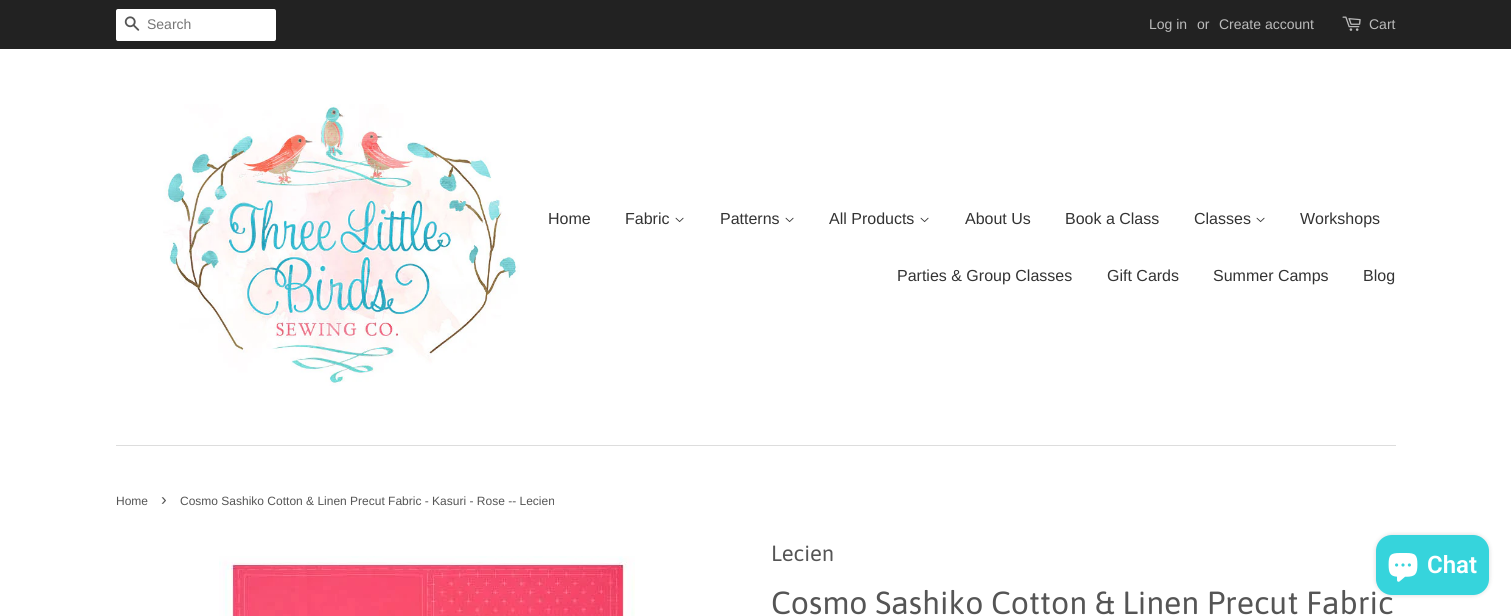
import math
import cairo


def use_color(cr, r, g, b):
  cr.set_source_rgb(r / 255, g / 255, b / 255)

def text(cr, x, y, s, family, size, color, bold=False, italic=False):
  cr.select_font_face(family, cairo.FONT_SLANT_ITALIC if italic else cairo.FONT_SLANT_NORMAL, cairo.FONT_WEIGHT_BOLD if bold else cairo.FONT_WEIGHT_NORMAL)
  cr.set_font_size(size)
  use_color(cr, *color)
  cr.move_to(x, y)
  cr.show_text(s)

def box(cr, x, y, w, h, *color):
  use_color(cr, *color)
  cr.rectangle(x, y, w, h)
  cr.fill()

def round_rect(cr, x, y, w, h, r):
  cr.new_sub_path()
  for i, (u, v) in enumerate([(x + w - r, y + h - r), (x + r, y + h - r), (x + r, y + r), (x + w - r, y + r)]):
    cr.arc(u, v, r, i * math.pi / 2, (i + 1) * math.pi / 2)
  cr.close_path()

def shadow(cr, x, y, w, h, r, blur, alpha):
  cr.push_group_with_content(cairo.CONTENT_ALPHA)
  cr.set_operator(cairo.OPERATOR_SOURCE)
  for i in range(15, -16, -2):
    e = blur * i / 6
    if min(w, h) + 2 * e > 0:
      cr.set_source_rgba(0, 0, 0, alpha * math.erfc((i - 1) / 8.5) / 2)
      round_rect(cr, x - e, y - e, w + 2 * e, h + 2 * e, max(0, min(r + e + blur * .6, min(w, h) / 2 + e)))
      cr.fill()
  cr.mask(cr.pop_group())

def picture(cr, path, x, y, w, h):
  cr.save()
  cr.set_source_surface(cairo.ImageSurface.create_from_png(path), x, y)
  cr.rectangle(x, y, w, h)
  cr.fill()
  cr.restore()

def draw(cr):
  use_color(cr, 255, 255, 255)
  cr.paint()
  box(cr, 0, 0, 1511, 49, 34, 34, 34)
  use_color(cr, 255, 255, 255)
  round_rect(cr, 116, 9, 160, 32, 2)
  cr.fill()
  picture(cr, "img_01.png", 124, 16, 16, 15)
  picture(cr, "img_02.png", 1342, 16, 19, 15)
  box(cr, 116, 445, 1280, 1, 221, 221, 221)
  picture(cr, "img_03.png", 163, 104, 357, 282)
  picture(cr, "img_04.png", 675, 217, 9, 6)
  picture(cr, "img_04.png", 785, 217, 9, 6)
  picture(cr, "img_04.png", 920, 217, 9, 6)
  picture(cr, "img_04.png", 1256, 217, 9, 6)
  picture(cr, "img_05.png", 219, 556, 416, 60)
  use_color(cr, 0, 0, 0)
  shadow(cr, 1376, 535, 113, 60, 16, 2.5, 0.15)
  text(cr, 147, 29, "Search", "Liberation Sans", 14, (117, 117, 117))
  text(cr, 1149, 29, "Log in", "Liberation Sans", 14, (187, 187, 187))
  text(cr, 1197, 29, "or", "Liberation Sans", 14, (187, 187, 187))
  text(cr, 1219, 29, "Create account", "Liberation Sans", 14, (187, 187, 187))
  text(cr, 1369, 29, "Cart", "Liberation Sans", 14, (187, 187, 187))
  text(cr, 548, 224, "Home", "Liberation Sans", 16, (51, 51, 51))
  text(cr, 625, 224, "Fabric", "Liberation Sans", 16, (51, 51, 51))
  text(cr, 720, 224, "Patterns", "Liberation Sans", 16, (51, 51, 51))
  text(cr, 829, 224, "All Products", "Liberation Sans", 16, (51, 51, 51))
  text(cr, 965, 224, "About Us", "Liberation Sans", 16, (51, 51, 51))
  text(cr, 1065, 224, "Book a Class", "Liberation Sans", 16, (51, 51, 51))
  text(cr, 1194, 224, "Classes", "Liberation Sans", 16, (51, 51, 51))
  text(cr, 1300, 224, "Workshops", "Liberation Sans", 16, (51, 51, 51))
  text(cr, 897, 281, "Parties & Group Classes", "Liberation Sans", 16, (51, 51, 51))
  text(cr, 1107, 281, "Gift Cards", "Liberation Sans", 16, (51, 51, 51))
  text(cr, 1213, 281, "Summer Camps", "Liberation Sans", 16, (51, 51, 51))
  text(cr, 1363, 281, "Blog", "Liberation Sans", 16, (51, 51, 51))
  text(cr, 116, 505, "Home", "Liberation Sans", 12, (85, 85, 85))
  text(cr, 161, 505, "›", "Liberation Sans", 17, (85, 85, 85))
  text(cr, 180, 505, "Cosmo Sashiko Cotton & Linen Precut Fabric - Kasuri - Rose -- Lecien", "Liberation Sans", 12, (85, 85, 85))
  text(cr, 771, 561, "Lecien", "Asap", 22, (85, 85, 85))
  text(cr, 771, 614, "Cosmo Sashiko Cotton & Linen Precut Fabric", "Asap", 32, (85, 85, 85))
  use_color(cr, 54, 212, 220)
  round_rect(cr, 1376, 535, 113, 60, 16)
  cr.fill()
  picture(cr, "img_06.png", 1388, 553, 30, 29)
  text(cr, 1427, 573, "Chat", "Roboto SemiBold", 24, (255, 255, 255))


surface = cairo.ImageSurface(cairo.FORMAT_RGB24, 1511, 616)
cr = cairo.Context(surface)
options = cairo.FontOptions()
options.set_hint_metrics(cairo.HINT_METRICS_OFF)
options.set_hint_style(cairo.HINT_STYLE_NONE)
cr.set_font_options(options)
cr.set_miter_limit(4)
draw(cr)
surface.write_to_png("out.png")
